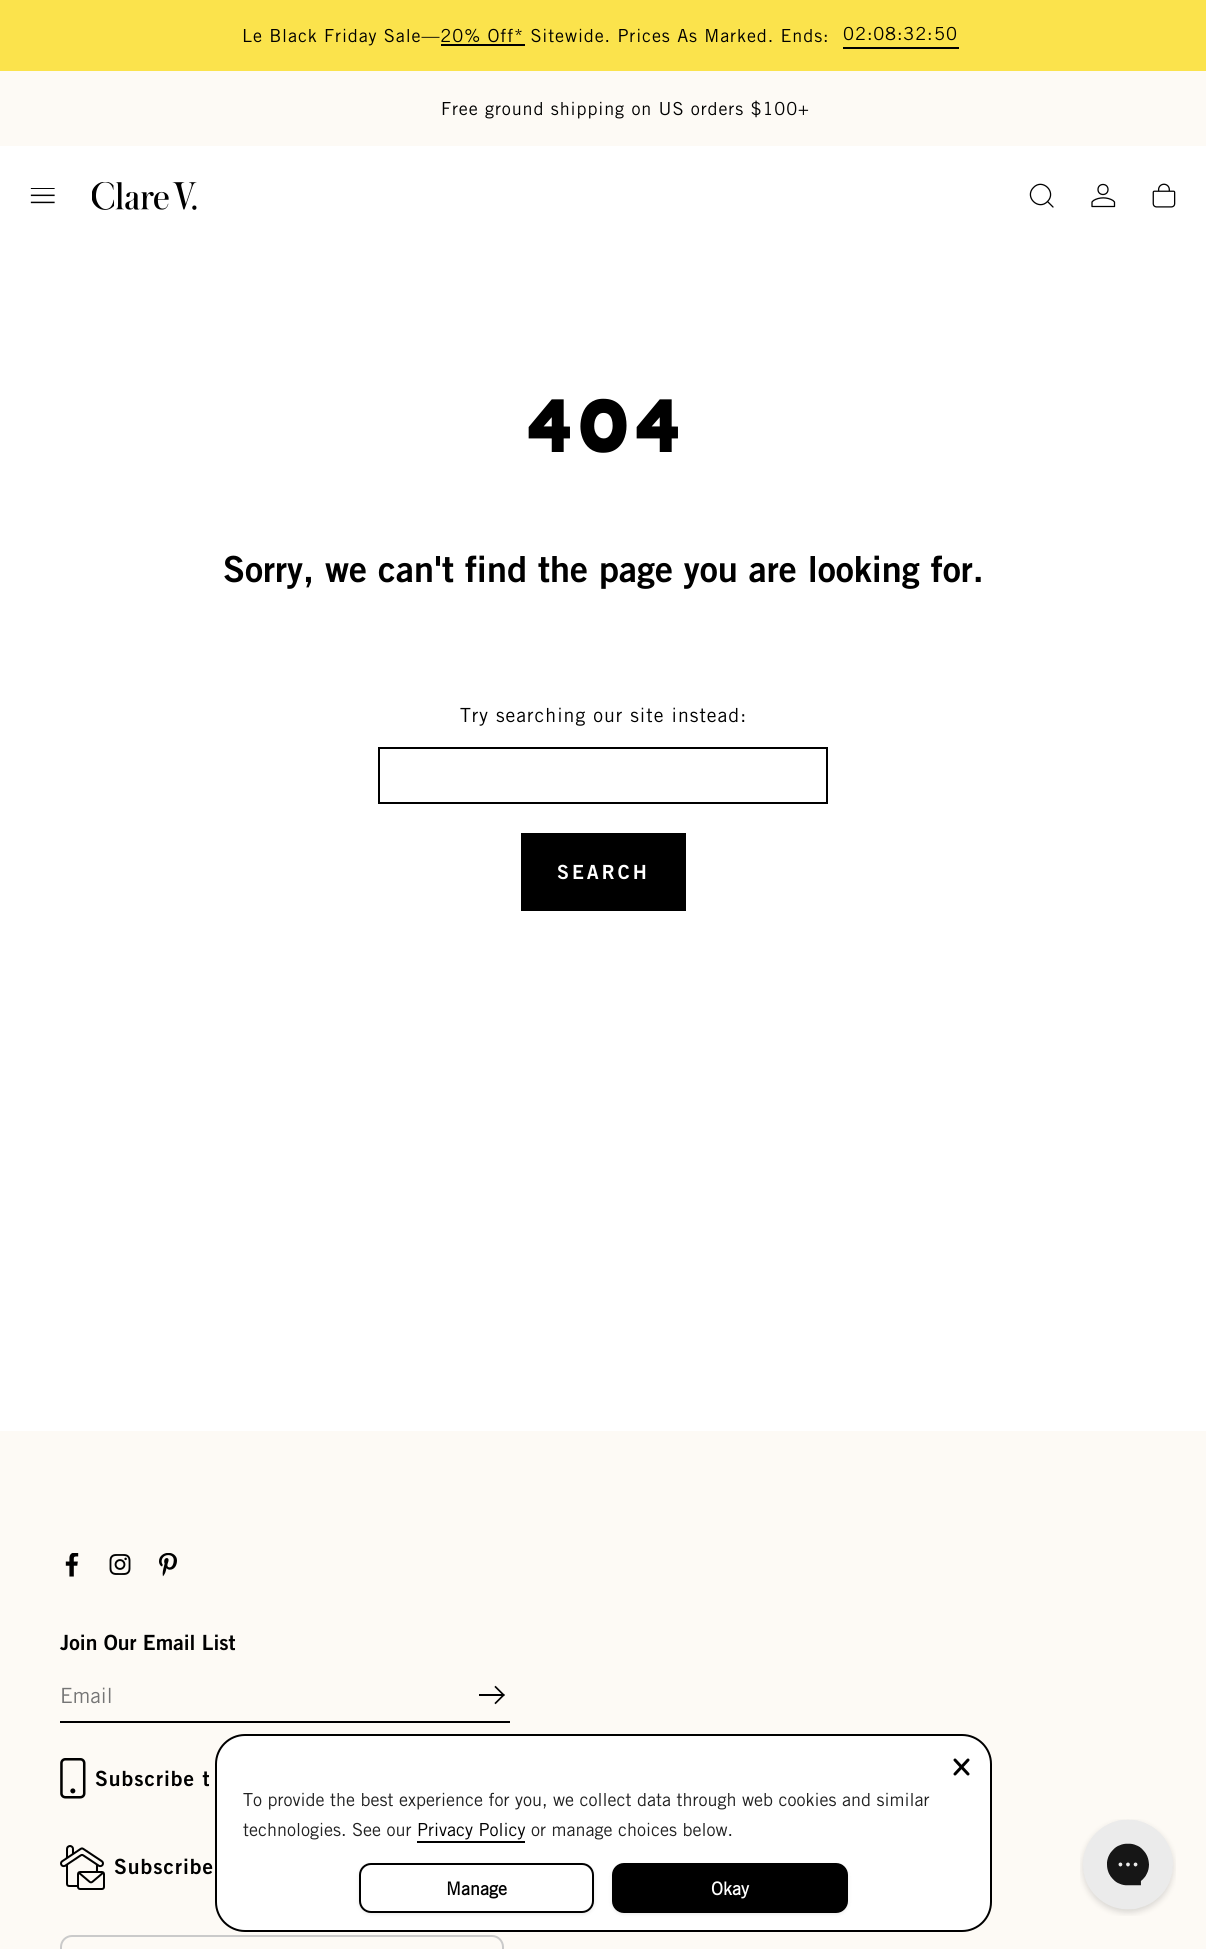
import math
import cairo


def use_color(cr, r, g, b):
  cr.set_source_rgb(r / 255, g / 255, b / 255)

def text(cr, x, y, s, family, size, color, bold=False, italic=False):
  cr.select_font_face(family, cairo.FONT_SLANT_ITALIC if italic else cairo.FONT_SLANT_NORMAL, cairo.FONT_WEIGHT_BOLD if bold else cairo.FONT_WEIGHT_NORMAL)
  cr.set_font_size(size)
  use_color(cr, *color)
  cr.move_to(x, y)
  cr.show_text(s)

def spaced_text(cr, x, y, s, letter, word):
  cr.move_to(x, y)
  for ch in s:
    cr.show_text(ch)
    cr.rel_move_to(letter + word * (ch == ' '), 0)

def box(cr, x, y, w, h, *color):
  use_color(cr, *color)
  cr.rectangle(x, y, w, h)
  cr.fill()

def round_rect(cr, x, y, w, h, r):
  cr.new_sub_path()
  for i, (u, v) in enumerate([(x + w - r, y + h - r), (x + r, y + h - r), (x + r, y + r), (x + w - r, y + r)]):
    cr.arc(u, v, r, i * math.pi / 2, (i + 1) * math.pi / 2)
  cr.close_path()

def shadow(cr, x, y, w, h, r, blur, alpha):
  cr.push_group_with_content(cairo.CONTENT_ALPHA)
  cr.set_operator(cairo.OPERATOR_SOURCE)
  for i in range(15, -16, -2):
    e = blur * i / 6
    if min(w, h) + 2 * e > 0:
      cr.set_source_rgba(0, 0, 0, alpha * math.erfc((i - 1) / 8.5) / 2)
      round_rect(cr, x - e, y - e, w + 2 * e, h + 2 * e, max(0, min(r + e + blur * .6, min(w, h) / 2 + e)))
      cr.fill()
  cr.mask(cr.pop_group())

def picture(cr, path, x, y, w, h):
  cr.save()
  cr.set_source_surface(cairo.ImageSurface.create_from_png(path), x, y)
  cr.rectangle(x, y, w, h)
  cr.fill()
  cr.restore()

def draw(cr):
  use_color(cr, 255, 255, 255)
  cr.paint()
  box(cr, 0, 0, 1206, 71, 251, 227, 76)
  box(cr, 441, 44, 84, 2, 0, 0, 0)
  box(cr, 843, 47, 116, 2, 0, 0, 0)
  box(cr, 0, 71, 1206, 75, 253, 250, 245)
  picture(cr, "img_01.png", 30, 188, 25, 16)
  picture(cr, "img_02.png", 92, 182, 105, 28)
  cr.new_path()
  cr.move_to(1053, 207)
  cr.line_to(1047.5, 201.5)
  cr.move_to(1047.5, 201.5)
  cr.curve_to(1057, 192, 1042.5, 178, 1033.5, 187.5)
  cr.curve_to(1024, 197, 1038.5, 211, 1047.5, 201.5)
  cr.close_path()
  use_color(cr, 0, 0, 0)
  cr.set_line_width(1.3)
  cr.set_line_cap(cairo.LINE_CAP_ROUND)
  cr.set_line_join(cairo.LINE_JOIN_ROUND)
  cr.stroke()
  cr.arc(1103, 189.5, 5, 0, 2 * math.pi)
  cr.set_line_cap(cairo.LINE_CAP_BUTT)
  cr.set_line_join(cairo.LINE_JOIN_MITER)
  cr.stroke()
  cr.new_path()
  cr.move_to(1092, 202)
  cr.line_to(1092, 206.5)
  cr.line_to(1114.5, 206.5)
  cr.line_to(1114.5, 202)
  cr.line_to(1113, 200.5)
  cr.curve_to(1107.5, 197, 1099, 197, 1093.5, 200.5)
  cr.close_path()
  cr.set_line_join(cairo.LINE_JOIN_ROUND)
  cr.stroke()
  picture(cr, "img_03.png", 1152, 183, 24, 25)
  cr.rectangle(379, 748, 448, 55)
  cr.set_line_width(2)
  cr.set_line_join(cairo.LINE_JOIN_MITER)
  cr.stroke()
  box(cr, 521, 833, 165, 78, 0, 0, 0)
  box(cr, 0, 1431, 1206, 518, 253, 250, 245)
  picture(cr, "img_04.png", 65, 1553, 14, 24)
  picture(cr, "img_05.png", 109, 1554, 22, 21)
  picture(cr, "img_06.png", 159, 1553, 18, 24)
  box(cr, 60, 1721, 450, 2, 0, 0, 0)
  picture(cr, "img_07.png", 479, 1685, 26, 20)
  picture(cr, "img_08.png", 60, 1758, 26, 41)
  picture(cr, "img_09.png", 60, 1845, 45, 45)
  round_rect(cr, 61, 1936, 442, 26, 11)
  use_color(cr, 202, 202, 202)
  cr.stroke()
  picture(cr, "img_10.png", 1080, 1819, 96, 97)
  use_color(cr, 255, 255, 255)
  round_rect(cr, 216, 1735, 775, 196, 29)
  cr.fill_preserve()
  use_color(cr, 0, 0, 0)
  cr.stroke()
  cr.new_path()
  cr.move_to(968, 1760)
  cr.line_to(955, 1774)
  cr.move_to(955, 1760)
  cr.line_to(968, 1774)
  cr.set_line_width(3)
  cr.set_line_cap(cairo.LINE_CAP_ROUND)
  cr.set_line_join(cairo.LINE_JOIN_ROUND)
  cr.stroke()
  box(cr, 417, 1841, 108, 2, 0, 0, 0)
  use_color(cr, 0, 0, 0)
  shadow(cr, 359, 1865, 235, 49, 12, 2, 0.1)
  use_color(cr, 255, 255, 255)
  round_rect(cr, 360, 1864, 233, 48, 11)
  cr.fill_preserve()
  use_color(cr, 0, 0, 0)
  cr.set_line_width(2)
  cr.set_line_cap(cairo.LINE_CAP_BUTT)
  cr.set_line_join(cairo.LINE_JOIN_MITER)
  cr.stroke()
  use_color(cr, 0, 0, 0)
  shadow(cr, 612, 1865, 236, 49, 12, 2, 0.1)
  use_color(cr, 0, 0, 0)
  round_rect(cr, 613, 1864, 234, 48, 11)
  cr.fill_preserve()
  cr.stroke()
  cr.select_font_face("Trade Gothic")
  cr.set_font_size(18)
  spaced_text(cr, 242, 42, "Le Black Friday Sale—20% Off* Sitewide. Prices As Marked. Ends:", 0.9, 0)
  spaced_text(cr, 843, 40, "02 08 32", 0.9, 0)
  spaced_text(cr, 867, 40, ":", 1, 0)
  spaced_text(cr, 934, 40, "50", 0.9, 0)
  spaced_text(cr, 897, 40, ":", 1, 0)
  spaced_text(cr, 927, 40, ":", 1, 0)
  spaced_text(cr, 441, 115, "Free ground shipping on US orders $100+", 0.9, 0)
  cr.select_font_face("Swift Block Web")
  cr.set_font_size(75)
  spaced_text(cr, 524, 452, "404", 1, 0)
  text(cr, 223, 582, "Sorry, we can't find the page you are looking for.", "Trade Gothic", 36, (0, 0, 0), bold=True)
  cr.select_font_face("Trade Gothic")
  cr.set_font_size(19.5)
  spaced_text(cr, 460, 722, "Try searching our site instead:", 1, 0)
  cr.select_font_face("Trade Gothic", cairo.FONT_SLANT_NORMAL, cairo.FONT_WEIGHT_BOLD)
  use_color(cr, 255, 255, 255)
  spaced_text(cr, 557, 879, "SEARCH", 3, 0)
  text(cr, 60, 1650, "Join Our Email List", "Trade Gothic", 21, (0, 0, 0), bold=True)
  text(cr, 60, 1703, "Email", "Trade Gothic", 21, (117, 117, 117))
  cr.select_font_face("Trade Gothic", cairo.FONT_SLANT_NORMAL, cairo.FONT_WEIGHT_BOLD)
  use_color(cr, 0, 0, 0)
  spaced_text(cr, 95, 1786, "Subscribe t", 1, 0)
  spaced_text(cr, 114, 1874, "Subscribe", 1, 0)
  text(cr, 243, 1806, "To provide the best experience for you, we collect data through web cookies and similar", "Trade Gothic", 18, (33, 33, 33))
  text(cr, 243, 1836, "technologies. See our", "Trade Gothic", 18, (33, 33, 33))
  text(cr, 417, 1836, "Privacy Policy", "Trade Gothic", 18, (0, 0, 0))
  text(cr, 531, 1836, "or manage choices below.", "Trade Gothic", 18, (33, 33, 33))
  text(cr, 446, 1895, "Manage", "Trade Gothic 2", 18, (0, 0, 0), bold=True)
  text(cr, 711, 1895, "Okay", "Trade Gothic 2", 18, (255, 255, 255), bold=True)


surface = cairo.ImageSurface(cairo.FORMAT_RGB24, 1206, 1949)
cr = cairo.Context(surface)
options = cairo.FontOptions()
options.set_hint_metrics(cairo.HINT_METRICS_OFF)
options.set_hint_style(cairo.HINT_STYLE_NONE)
cr.set_font_options(options)
cr.set_miter_limit(4)
draw(cr)
surface.write_to_png("out.png")
